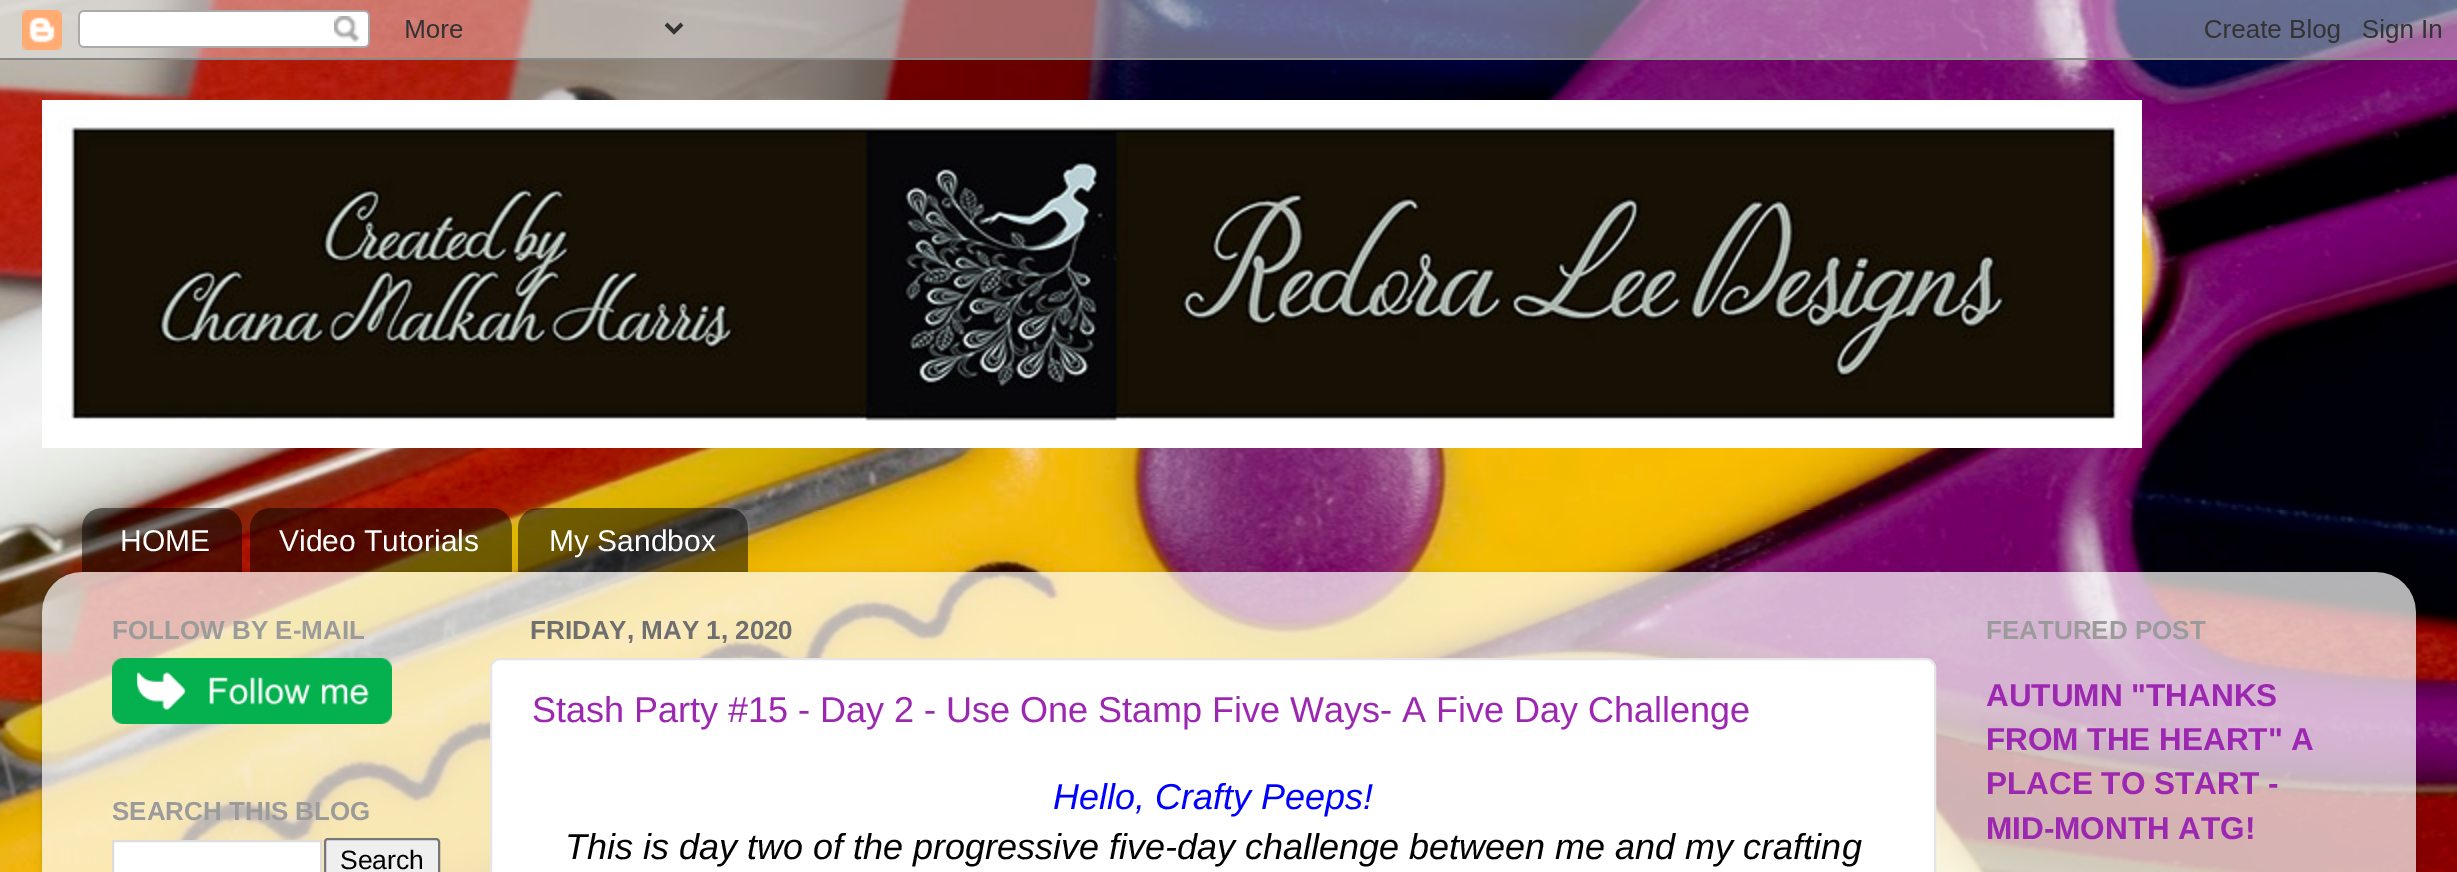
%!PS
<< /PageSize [2457 872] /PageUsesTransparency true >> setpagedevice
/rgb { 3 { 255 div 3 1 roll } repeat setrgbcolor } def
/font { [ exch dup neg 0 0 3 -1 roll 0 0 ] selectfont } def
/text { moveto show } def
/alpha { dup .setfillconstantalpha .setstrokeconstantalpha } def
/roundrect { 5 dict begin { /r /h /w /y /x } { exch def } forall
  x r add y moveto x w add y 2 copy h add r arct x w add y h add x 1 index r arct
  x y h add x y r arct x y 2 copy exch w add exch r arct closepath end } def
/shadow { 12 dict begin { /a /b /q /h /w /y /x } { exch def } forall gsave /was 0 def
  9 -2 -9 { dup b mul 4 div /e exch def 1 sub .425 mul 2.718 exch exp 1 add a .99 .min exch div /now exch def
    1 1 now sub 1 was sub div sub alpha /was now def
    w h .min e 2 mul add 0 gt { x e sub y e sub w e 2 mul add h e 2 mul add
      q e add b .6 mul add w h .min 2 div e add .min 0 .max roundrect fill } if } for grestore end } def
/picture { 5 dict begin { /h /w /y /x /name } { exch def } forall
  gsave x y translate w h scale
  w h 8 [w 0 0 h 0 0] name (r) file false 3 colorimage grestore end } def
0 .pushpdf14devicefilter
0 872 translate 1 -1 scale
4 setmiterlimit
255 255 255 rgb
0 0 2457 872 rectfill
(img_01.rgb) 0 0 2457 872 picture
(img_02.rgb) 0 0 2457 60 picture
(img_03.rgb) 42 100 2100 348 picture
(img_04.rgb) 82 508 160 64 picture
(img_05.rgb) 250 508 262 64 picture
(img_06.rgb) 518 508 230 64 picture
gsave
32 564 moveto 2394 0 rlineto 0 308 rlineto -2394 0 rlineto closepath 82 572 moveto 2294 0 rlineto 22 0 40 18 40 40 rcurveto 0 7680 rlineto -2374 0 rlineto 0 -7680 rlineto 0 -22 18 -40 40 -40 rcurveto closepath eoclip newpath
0 0 0 rgb
42 574 2374 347 40 3 0.15 shadow
grestore
(img_07.rgb) 42 572 2374 300 picture
(img_08.rgb) 112 658 280 66 picture
113 841 moveto 208 0 rlineto 0 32 rlineto -208 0 rlineto closepath gsave fill grestore
221 221 221 rgb
2 setlinewidth
stroke
239 239 239 rgb
325 839 114 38 3 roundrect gsave fill grestore
118 118 118 rgb
stroke
255 255 255 rgb
491 659 1444 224 9 roundrect gsave fill grestore
229 229 229 rgb
stroke
/LiberationSans-Regular 30 font
255 255 255 rgb
(HOME) 120 551 text
(Video Tutorials) 279 551 text
(My Sandbox) 549 551 text
/LiberationSans-Bold 26 font
155 155 155 rgb
(FOLLOW BY E-MAIL) 112 639 text
(SEARCH THIS BLOG) 112 820 text
/LiberationSans-Regular 26.5 font
0 0 0 rgb
(Search) 340 869 text
/LiberationSans-Bold 26 font
111 111 111 rgb
(FRIDAY, MAY 1, 2020) 530 639 text
/LiberationSans-Regular 36 font
156 39 176 rgb
(Stash Party #15 - Day 2 - Use One Stamp Five Ways- A Five Day Challenge) 532 722 text
/LiberationSans-Italic 36 font
0 0 255 rgb
(Hello, Crafty Peeps!) 1053 809 text
0 0 0 rgb
(This is day two of the progressive five-day challenge between me and my crafting) 565 859 text
/LiberationSans-Bold 26 font
155 155 155 rgb
(FEATURED POST) 1986 639 text
/LiberationSans-Bold 31.5 font
156 39 176 rgb
(AUTUMN "THANKS) 1986 706 text
(FROM THE HEART" A) 1986 750 text
(PLACE TO START -) 1986 794 text
(MID-MONTH ATG!) 1986 839 text
.poppdf14devicefilter showpage
